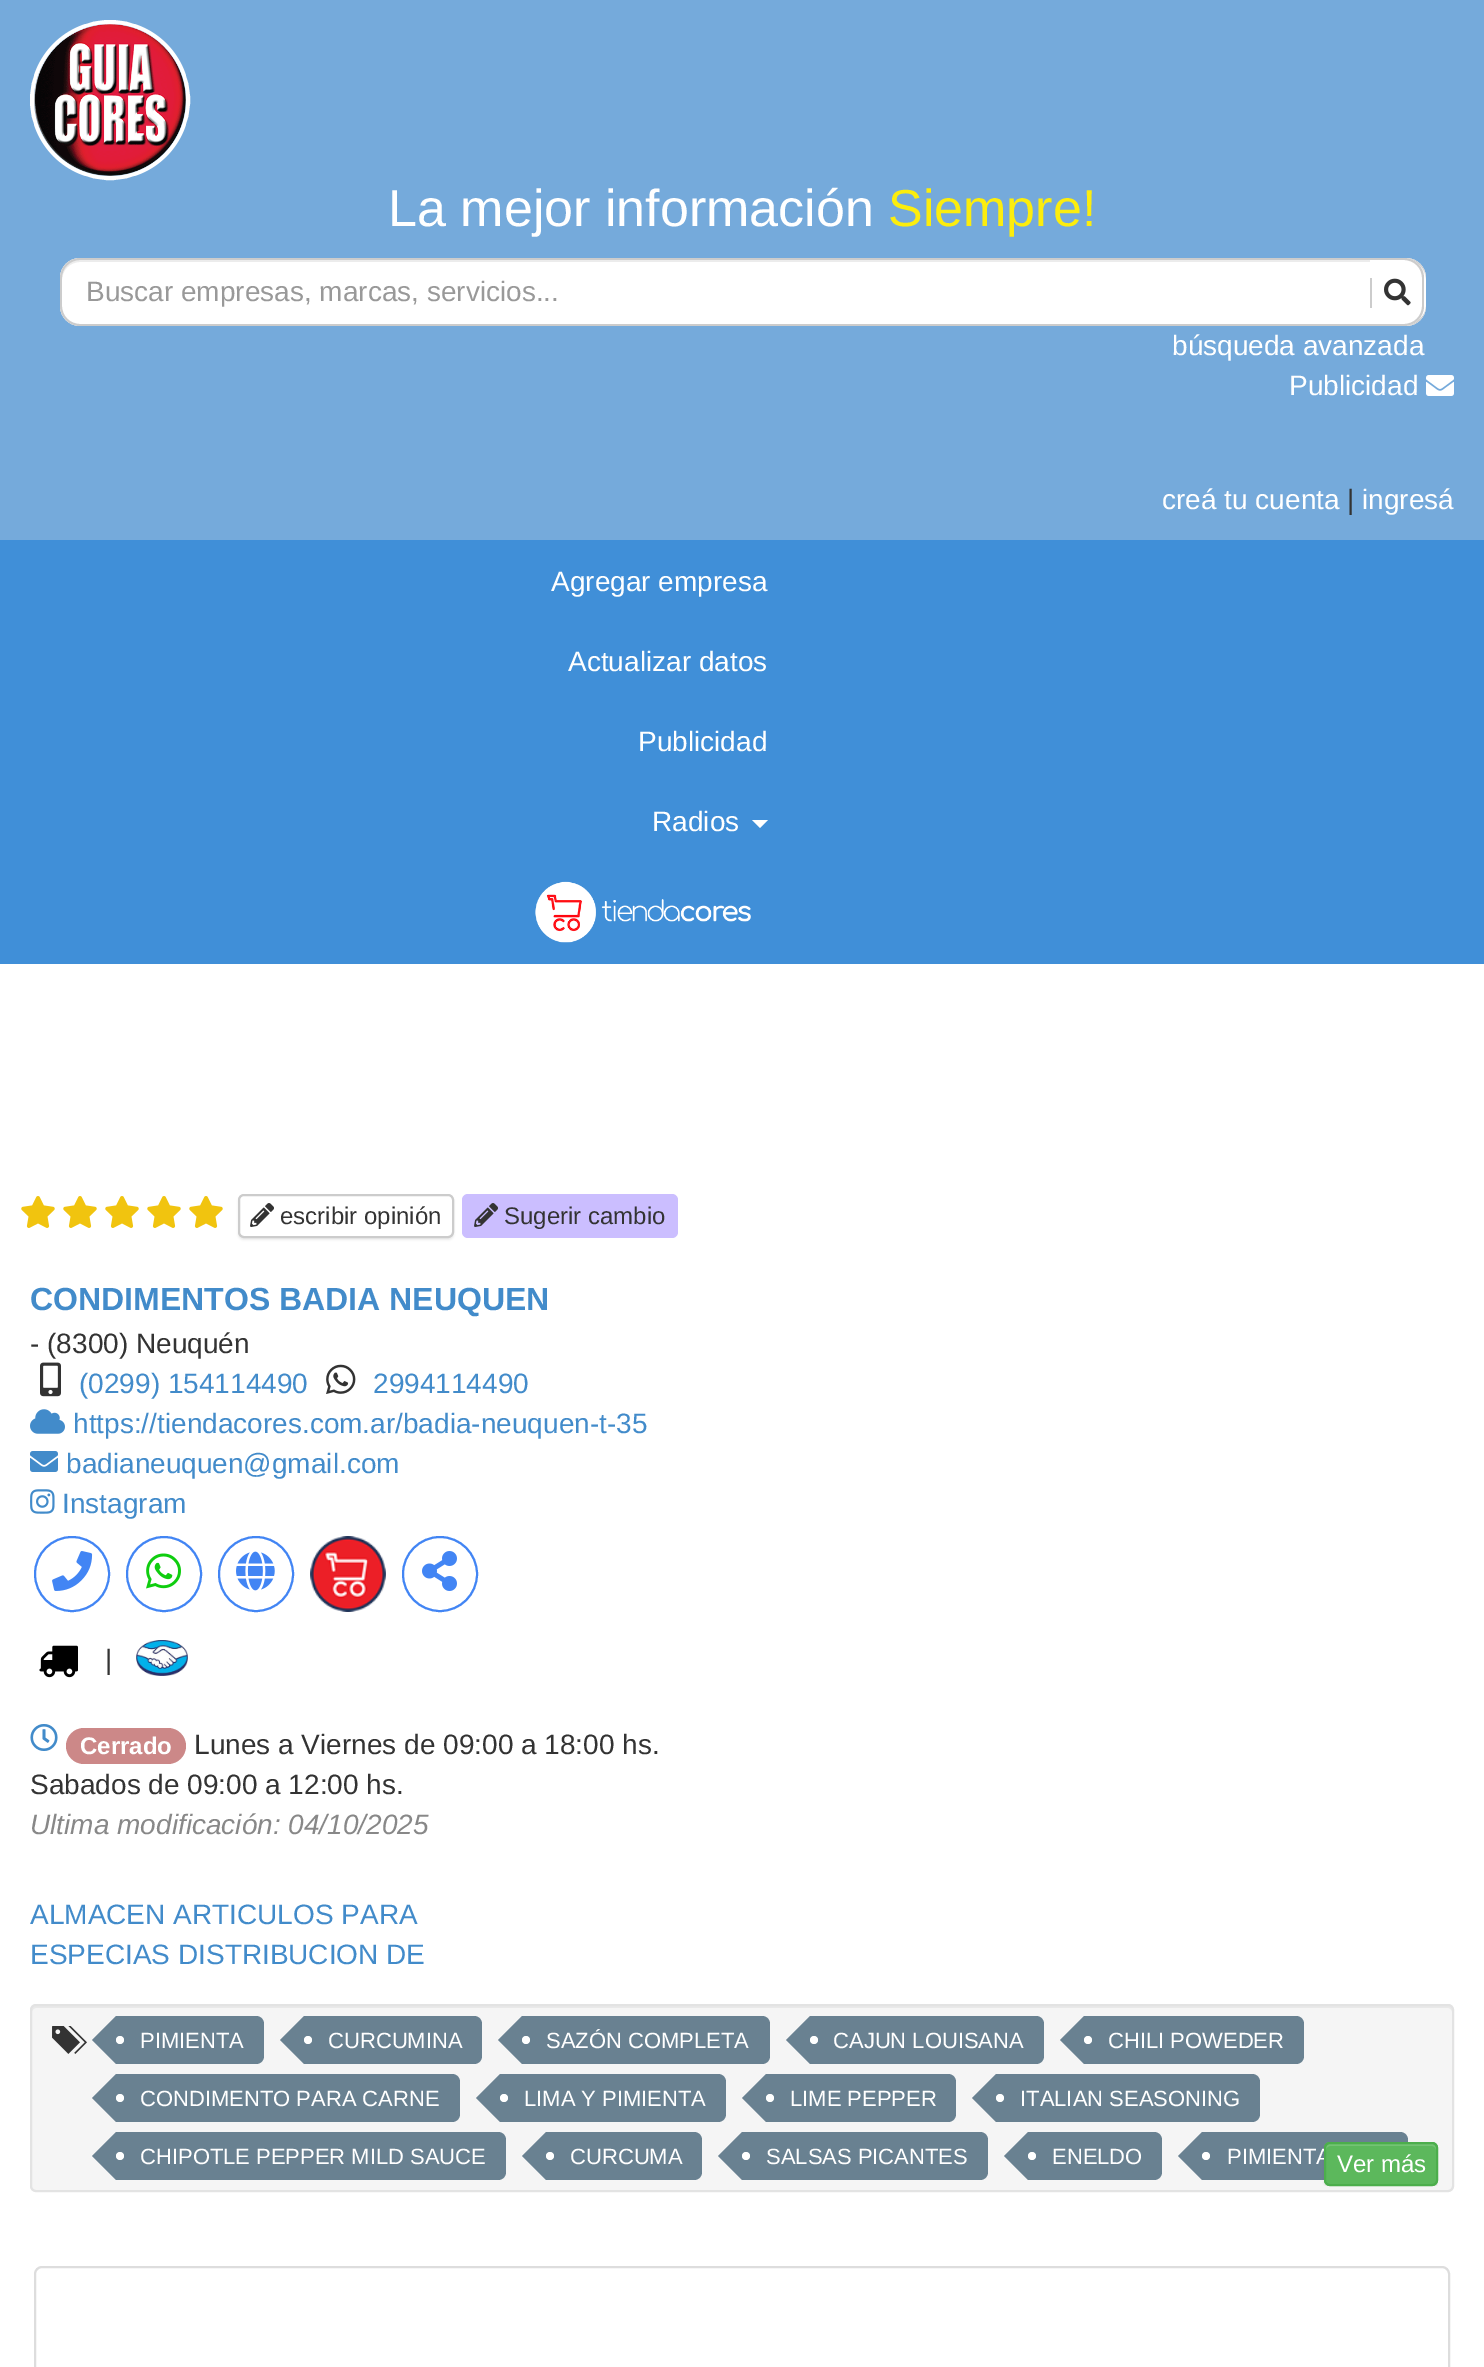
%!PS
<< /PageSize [1484 2367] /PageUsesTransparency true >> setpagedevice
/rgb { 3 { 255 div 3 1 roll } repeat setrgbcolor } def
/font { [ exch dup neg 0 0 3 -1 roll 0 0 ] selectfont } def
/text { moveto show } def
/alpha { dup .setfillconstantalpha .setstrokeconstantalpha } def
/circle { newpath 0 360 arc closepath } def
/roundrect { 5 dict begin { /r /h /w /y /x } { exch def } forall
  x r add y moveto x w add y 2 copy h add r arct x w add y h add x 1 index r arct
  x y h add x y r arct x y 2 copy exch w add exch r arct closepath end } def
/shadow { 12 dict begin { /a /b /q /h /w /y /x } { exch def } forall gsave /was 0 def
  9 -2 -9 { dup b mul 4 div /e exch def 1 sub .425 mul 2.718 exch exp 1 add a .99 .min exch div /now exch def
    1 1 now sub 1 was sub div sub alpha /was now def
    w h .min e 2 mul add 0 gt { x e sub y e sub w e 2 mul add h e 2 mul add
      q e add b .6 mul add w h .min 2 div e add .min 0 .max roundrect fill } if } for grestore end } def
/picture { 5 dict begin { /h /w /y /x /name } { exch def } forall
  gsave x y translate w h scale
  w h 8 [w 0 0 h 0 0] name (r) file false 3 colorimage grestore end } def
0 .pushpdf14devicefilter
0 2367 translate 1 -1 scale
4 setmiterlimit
255 255 255 rgb
0 0 1484 2367 rectfill
117 170 219 rgb
0 0 1484 540 rectfill
255 255 255 rgb
4 setlinewidth
110 100 78 circle stroke
(img_01.rgb) 34 24 152 152 picture
60 258 1366 68 20 roundrect fill
236 236 236 rgb
80 262 moveto 1326 0 rlineto 11 0 20 8 20 18 rcurveto 0 -12 -8 -20 -20 -20 rcurveto -1326 0 rlineto -12 0 -18 9 -18 20 rcurveto 0 -10 8 -18 18 -18 rcurveto closepath fill
204 204 204 rgb
80 258 moveto 1326 0 rlineto 11 0 20 9 20 20 rcurveto 0 28 rlineto 0 11 -9 20 -20 20 rcurveto -1326 0 rlineto -11 0 -20 -9 -20 -20 rcurveto 0 -28 rlineto 0 -11 9 -20 20 -20 rcurveto closepath 80 260 moveto 1326 0 rlineto 11 0 20 8 20 18 rcurveto 0 28 rlineto 0 10 -9 18 -20 18 rcurveto -1326 0 rlineto -10 0 -18 -8 -18 -18 rcurveto 0 -28 rlineto 0 -10 8 -18 18 -18 rcurveto closepath eofill
255 255 255 rgb
1370 258 moveto 34 0 rlineto 11 0 20 9 20 20 rcurveto 0 28 rlineto 0 11 -9 20 -20 20 rcurveto -34 0 rlineto closepath fill
204 204 204 rgb
1370 258 moveto 34 0 rlineto 11 0 20 9 20 20 rcurveto 0 28 rlineto 0 11 -9 20 -20 20 rcurveto -34 0 rlineto closepath 1370 260 moveto 34 0 rlineto 10 0 18 8 18 18 rcurveto 0 28 rlineto 0 10 -8 18 -18 18 rcurveto -34 0 rlineto closepath eofill
1370 278 2 30 rectfill
(img_02.rgb) 1384 278 27 28 picture
(img_03.rgb) 1426 375 28 21 picture
64 143 216 rgb
0 540 1484 424 rectfill
255 255 255 rgb
752 820 moveto 16 0 rlineto -8 8 rlineto closepath fill
(img_04.rgb) 535 881 216 62 picture
(img_05.rgb) 21 1196 34 32 picture
(img_05.rgb) 63 1196 34 32 picture
(img_05.rgb) 105 1196 34 32 picture
(img_05.rgb) 147 1196 34 32 picture
(img_05.rgb) 189 1196 34 32 picture
0 0 0 rgb
238 1196 216 44 6 1 0.07 shadow
255 255 255 rgb
239 1195 214 42 5 roundrect gsave fill grestore
204 204 204 rgb
2 setlinewidth
stroke
(img_06.rgb) 250 1203 24 24 picture
203 190 255 rgb
462 1194 216 44 6 roundrect fill
(img_07.rgb) 474 1203 24 24 picture
(img_08.rgb) 40 1362 21 35 picture
(img_09.rgb) 326 1364 30 30 picture
(img_10.rgb) 30 1409 35 25 picture
(img_11.rgb) 30 1451 28 21 picture
(img_12.rgb) 30 1489 25 25 picture
66 133 244 rgb
72 1574 37 circle stroke
(img_13.rgb) 52 1551 41 40 picture
164 1574 37 circle stroke
(img_14.rgb) 146 1553 35 36 picture
256 1574 37 circle stroke
(img_15.rgb) 236 1551 39 40 picture
(img_16.rgb) 310 1536 76 76 picture
440 1574 37 circle stroke
(img_17.rgb) 422 1551 35 40 picture
(img_18.rgb) 39 1645 39 33 picture
(img_19.rgb) 136 1640 52 36 picture
(img_20.rgb) 30 1724 28 27 picture
204 136 136 rgb
66 1728 120 36 18 roundrect fill
245 245 245 rgb
30 2004 1424 188 6 roundrect fill
233 233 233 rgb
36 2008 moveto 1412 0 rlineto 2 0 4 2 4 4 rcurveto 0 -3 0 -6 -4 -6 rcurveto -1412 0 rlineto -4 0 -4 3 -4 6 rcurveto 0 -2 2 -4 4 -4 rcurveto closepath fill
227 227 227 rgb
31 2005 1422 186 5 roundrect stroke
(img_21.rgb) 52 2026 35 28 picture
105 129 145 rgb
116 2016 moveto 140 0 rlineto 4.5 0 8 3.5 8 8 rcurveto 0 32 rlineto 0 4.5 -3.5 8 -8 8 rcurveto -140 0 rlineto closepath fill
116 2016 moveto 0 48 rlineto -24 -24 rlineto closepath fill
255 255 255 rgb
120 2040 4 circle fill
105 129 145 rgb
304 2016 moveto 170 0 rlineto 4.5 0 8 3.5 8 8 rcurveto 0 32 rlineto 0 4.5 -3.5 8 -8 8 rcurveto -170 0 rlineto closepath fill
304 2016 moveto 0 48 rlineto -24 -24 rlineto closepath fill
255 255 255 rgb
308 2040 4 circle fill
105 129 145 rgb
522 2016 moveto 240 0 rlineto 4.5 0 8 3.5 8 8 rcurveto 0 32 rlineto 0 4.5 -3.5 8 -8 8 rcurveto -240 0 rlineto closepath fill
522 2016 moveto 0 48 rlineto -24 -24 rlineto closepath fill
255 255 255 rgb
526 2040 4 circle fill
105 129 145 rgb
810 2016 moveto 226 0 rlineto 4.5 0 8 3.5 8 8 rcurveto 0 32 rlineto 0 4.5 -3.5 8 -8 8 rcurveto -226 0 rlineto closepath fill
810 2016 moveto 0 48 rlineto -24 -24 rlineto closepath fill
255 255 255 rgb
814 2040 4 circle fill
105 129 145 rgb
1084 2016 moveto 212 0 rlineto 4.5 0 8 3.5 8 8 rcurveto 0 32 rlineto 0 4.5 -3.5 8 -8 8 rcurveto -212 0 rlineto closepath fill
1084 2016 moveto 0 48 rlineto -24 -24 rlineto closepath fill
255 255 255 rgb
1088 2040 4 circle fill
105 129 145 rgb
116 2074 moveto 336 0 rlineto 4.5 0 8 3.5 8 8 rcurveto 0 32 rlineto 0 4.5 -3.5 8 -8 8 rcurveto -336 0 rlineto closepath fill
116 2074 moveto 0 48 rlineto -24 -24 rlineto closepath fill
255 255 255 rgb
120 2098 4 circle fill
105 129 145 rgb
500 2074 moveto 218 0 rlineto 4.5 0 8 3.5 8 8 rcurveto 0 32 rlineto 0 4.5 -3.5 8 -8 8 rcurveto -218 0 rlineto closepath fill
500 2074 moveto 0 48 rlineto -24 -24 rlineto closepath fill
255 255 255 rgb
504 2098 4 circle fill
105 129 145 rgb
766 2074 moveto 182 0 rlineto 4.5 0 8 3.5 8 8 rcurveto 0 32 rlineto 0 4.5 -3.5 8 -8 8 rcurveto -182 0 rlineto closepath fill
766 2074 moveto 0 48 rlineto -24 -24 rlineto closepath fill
255 255 255 rgb
770 2098 4 circle fill
105 129 145 rgb
996 2074 moveto 256 0 rlineto 4.5 0 8 3.5 8 8 rcurveto 0 32 rlineto 0 4.5 -3.5 8 -8 8 rcurveto -256 0 rlineto closepath fill
996 2074 moveto 0 48 rlineto -24 -24 rlineto closepath fill
255 255 255 rgb
1000 2098 4 circle fill
105 129 145 rgb
116 2132 moveto 382 0 rlineto 4.5 0 8 3.5 8 8 rcurveto 0 32 rlineto 0 4.5 -3.5 8 -8 8 rcurveto -382 0 rlineto closepath fill
116 2132 moveto 0 48 rlineto -24 -24 rlineto closepath fill
255 255 255 rgb
120 2156 4 circle fill
105 129 145 rgb
546 2132 moveto 148 0 rlineto 4.5 0 8 3.5 8 8 rcurveto 0 32 rlineto 0 4.5 -3.5 8 -8 8 rcurveto -148 0 rlineto closepath fill
546 2132 moveto 0 48 rlineto -24 -24 rlineto closepath fill
255 255 255 rgb
550 2156 4 circle fill
105 129 145 rgb
742 2132 moveto 238 0 rlineto 4.5 0 8 3.5 8 8 rcurveto 0 32 rlineto 0 4.5 -3.5 8 -8 8 rcurveto -238 0 rlineto closepath fill
742 2132 moveto 0 48 rlineto -24 -24 rlineto closepath fill
255 255 255 rgb
746 2156 4 circle fill
105 129 145 rgb
1028 2132 moveto 126 0 rlineto 4.5 0 8 3.5 8 8 rcurveto 0 32 rlineto 0 4.5 -3.5 8 -8 8 rcurveto -126 0 rlineto closepath fill
1028 2132 moveto 0 48 rlineto -24 -24 rlineto closepath fill
255 255 255 rgb
1032 2156 4 circle fill
105 129 145 rgb
1202 2132 moveto 198 0 rlineto 4.5 0 8 3.5 8 8 rcurveto 0 32 rlineto 0 4.5 -3.5 8 -8 8 rcurveto -198 0 rlineto closepath fill
1202 2132 moveto 0 48 rlineto -24 -24 rlineto closepath fill
255 255 255 rgb
1206 2156 4 circle fill
gsave
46 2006 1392 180 rectclip
0 0 0 rgb
1324 2144 114 44 6 1 0.07 shadow
grestore
221 221 221 rgb
35 2267 1414 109 7 roundrect stroke
/LiberationSans-Regular 52 font
255 255 255 rgb
(La mejor información) 388 226 text
252 237 13 rgb
(Siempre!) 888 226 text
/LiberationSans-Regular 28 font
153 153 153 rgb
(Buscar empresas, marcas, servicios...) 86 301 text
255 255 255 rgb
(búsqueda avanzada) 1172 355 text
(Publicidad) 1289 395 text
(creá tu cuenta) 1162 509 text
51 51 51 rgb
(|) 1347 509 text
255 255 255 rgb
(ingresá) 1362 509 text
(Agregar empresa) 551 591 text
(Actualizar datos) 568 671 text
(Publicidad) 638 751 text
(Radios) 652 831 text
/LiberationSans-Regular 24 font
51 51 51 rgb
(escribir opinión) 280 1224 text
(Sugerir cambio) 504 1224 text
/LiberationSans-Bold 32 font
66 139 202 rgb
(CONDIMENTOS BADIA NEUQUEN) 30 1310 text
/LiberationSans-Regular 28 font
51 51 51 rgb
(- \(8300\) Neuquén) 30 1353 text
66 139 202 rgb
(\(0299\) 154114490) 79 1393 text
(2994114490) 373 1393 text
(https://tiendacores.com.ar/badia-neuquen-t-35) 73 1433 text
(badianeuquen@gmail.com) 66 1473 text
(Instagram) 62 1513 text
51 51 51 rgb
(|) 105 1669 text
/LiberationSans-Bold 24 font
255 255 255 rgb
(Cerrado) 80 1754 text
/LiberationSans-Regular 28 font
51 51 51 rgb
(Lunes a Viernes de 09:00 a 18:00 hs.) 194 1754 text
(Sabados de 09:00 a 12:00 hs.) 30 1794 text
/LiberationSans-Italic 28 font
136 136 136 rgb
(Ultima modificación: 04/10/2025) 30 1834 text
/LiberationSans-Regular 28 font
66 139 202 rgb
(ALMACEN ARTICULOS PARA) 30 1924 text
(ESPECIAS DISTRIBUCION DE) 30 1964 text
/LiberationSans-Regular 22 font
255 255 255 rgb
(PIMIENTA) 140 2048 text
(CURCUMINA) 328 2048 text
(SAZÓN COMPLETA) 546 2048 text
(CAJUN LOUISANA) 833 2048 text
(CHILI POWEDER) 1108 2048 text
(CONDIMENTO PARA CARNE) 140 2106 text
(LIMA Y PIMIENTA) 524 2106 text
(LIME PEPPER) 790 2106 text
(ITALIAN SEASONING) 1020 2106 text
(CHIPOTLE PEPPER MILD SAUCE) 140 2164 text
(CURCUMA) 570 2164 text
(SALSAS PICANTES) 766 2164 text
(ENELDO) 1052 2164 text
(PIMIENTA) 1227 2164 text
92 184 92 rgb
1324 2142 114 44 6 roundrect fill
116 195 116 rgb
1330 2146 moveto 102 0 rlineto 2 0 4 2 4 4 rcurveto 0 -2 rlineto 0 -2 -2 -4 -4 -4 rcurveto -102 0 rlineto -2 0 -4 2 -4 4 rcurveto 0 2 rlineto 0 -2 2 -4 4 -4 rcurveto closepath fill
76 174 76 rgb
1325 2143 112 42 5 roundrect stroke
/LiberationSans-Regular 24 font
255 255 255 rgb
(Ver más) 1337 2172 text
.poppdf14devicefilter showpage
